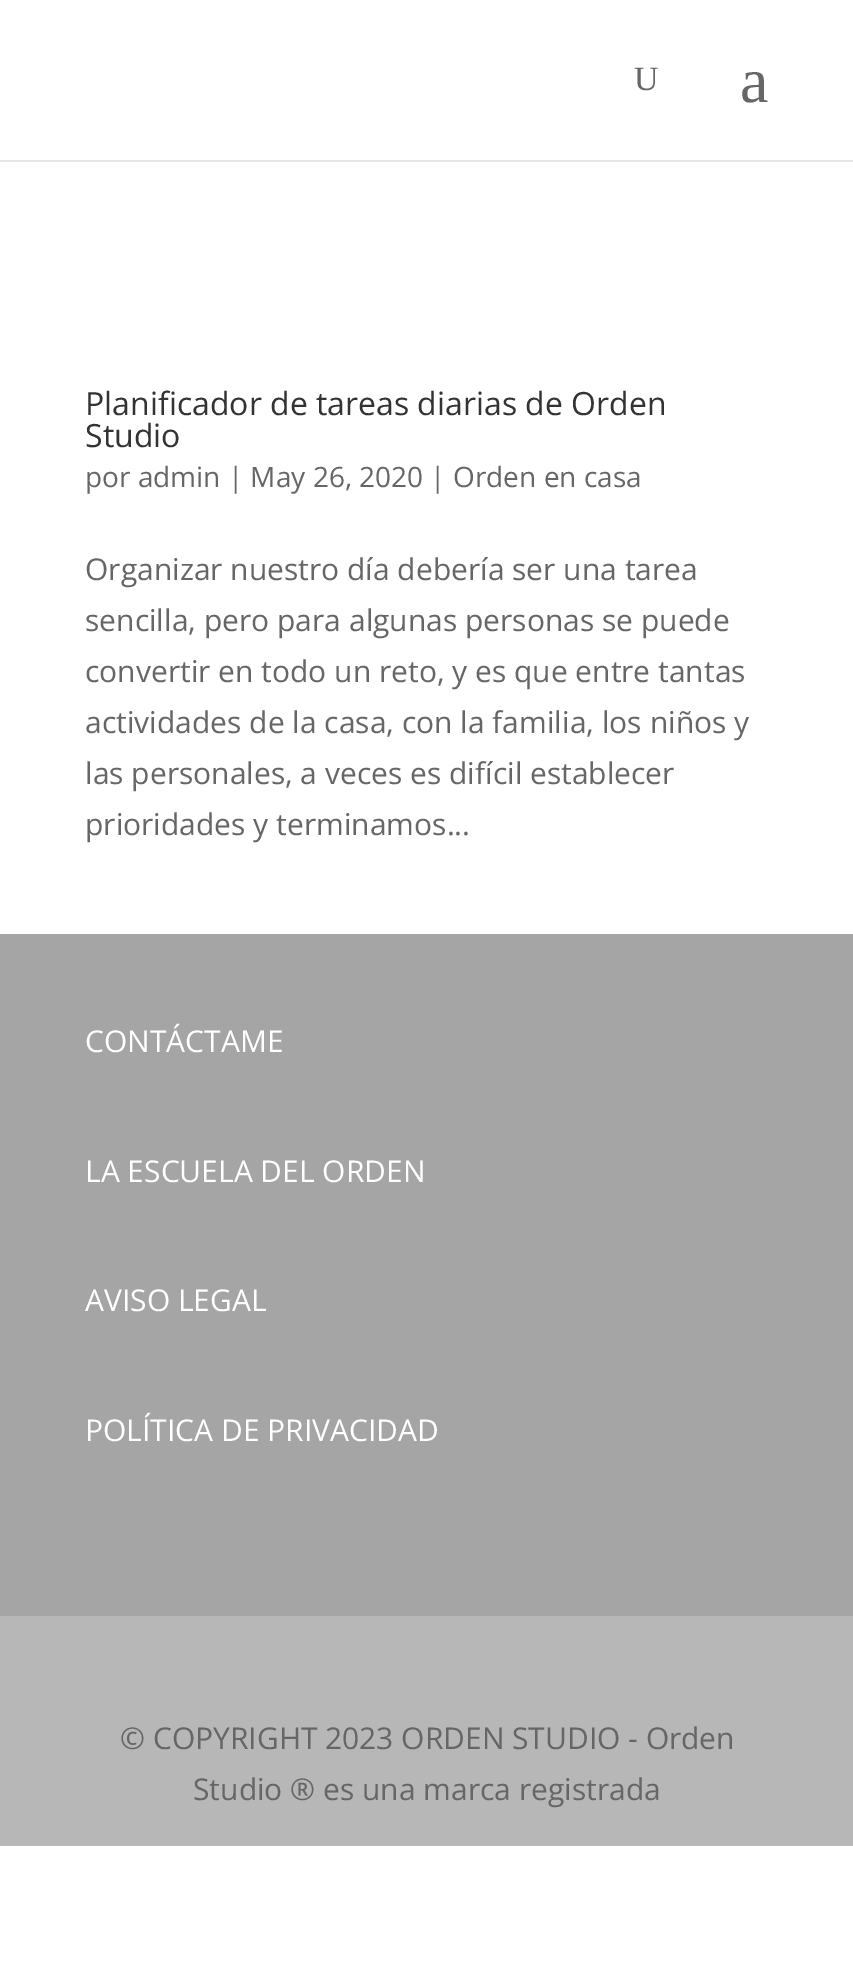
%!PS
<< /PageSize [853 1981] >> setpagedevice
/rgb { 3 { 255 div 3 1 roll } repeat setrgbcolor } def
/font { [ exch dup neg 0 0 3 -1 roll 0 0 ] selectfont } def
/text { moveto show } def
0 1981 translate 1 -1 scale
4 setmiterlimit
255 255 255 rgb
0 0 853 1981 rectfill
230 230 230 rgb
0 160 853 2 rectfill
165 165 165 rgb
0 934 853 682 rectfill
183 183 183 rgb
0 1616 853 230 rectfill
/LiberationSerif-Regular 34 font
102 102 102 rgb
(U) 634 90 text
/LiberationSerif-Regular 64 font
(a) 740 102 text
/OpenSans-Regular 32 font
51 51 51 rgb
(Planificador de tareas diarias de Orden) 85 415 text
(Studio) 85 447 text
/OpenSans-Regular 28 font
102 102 102 rgb
(por admin | May 26, 2020 | Orden en casa) 85 487 text
/OpenSans-Regular 30 font
(Organizar nuestro día debería ser una tarea) 85 580 text
(sencilla, pero para algunas personas se puede) 85 631 text
(convertir en todo un reto, y es que entre tantas) 85 682 text
(actividades de la casa, con la familia, los niños y) 85 733 text
(las personales, a veces es difícil establecer) 85 784 text
(prioridades y terminamos...) 85 835 text
255 255 255 rgb
(CONTÁCTAME) 85 1052 text
(LA ESCUELA DEL ORDEN) 85 1182 text
(AVISO LEGAL) 85 1311 text
(POLÍTICA DE PRIVACIDAD) 85 1441 text
102 102 102 rgb
(© COPYRIGHT 2023 ORDEN STUDIO - Orden) 120 1749 text
(Studio ® es una marca registrada) 193 1800 text
showpage
